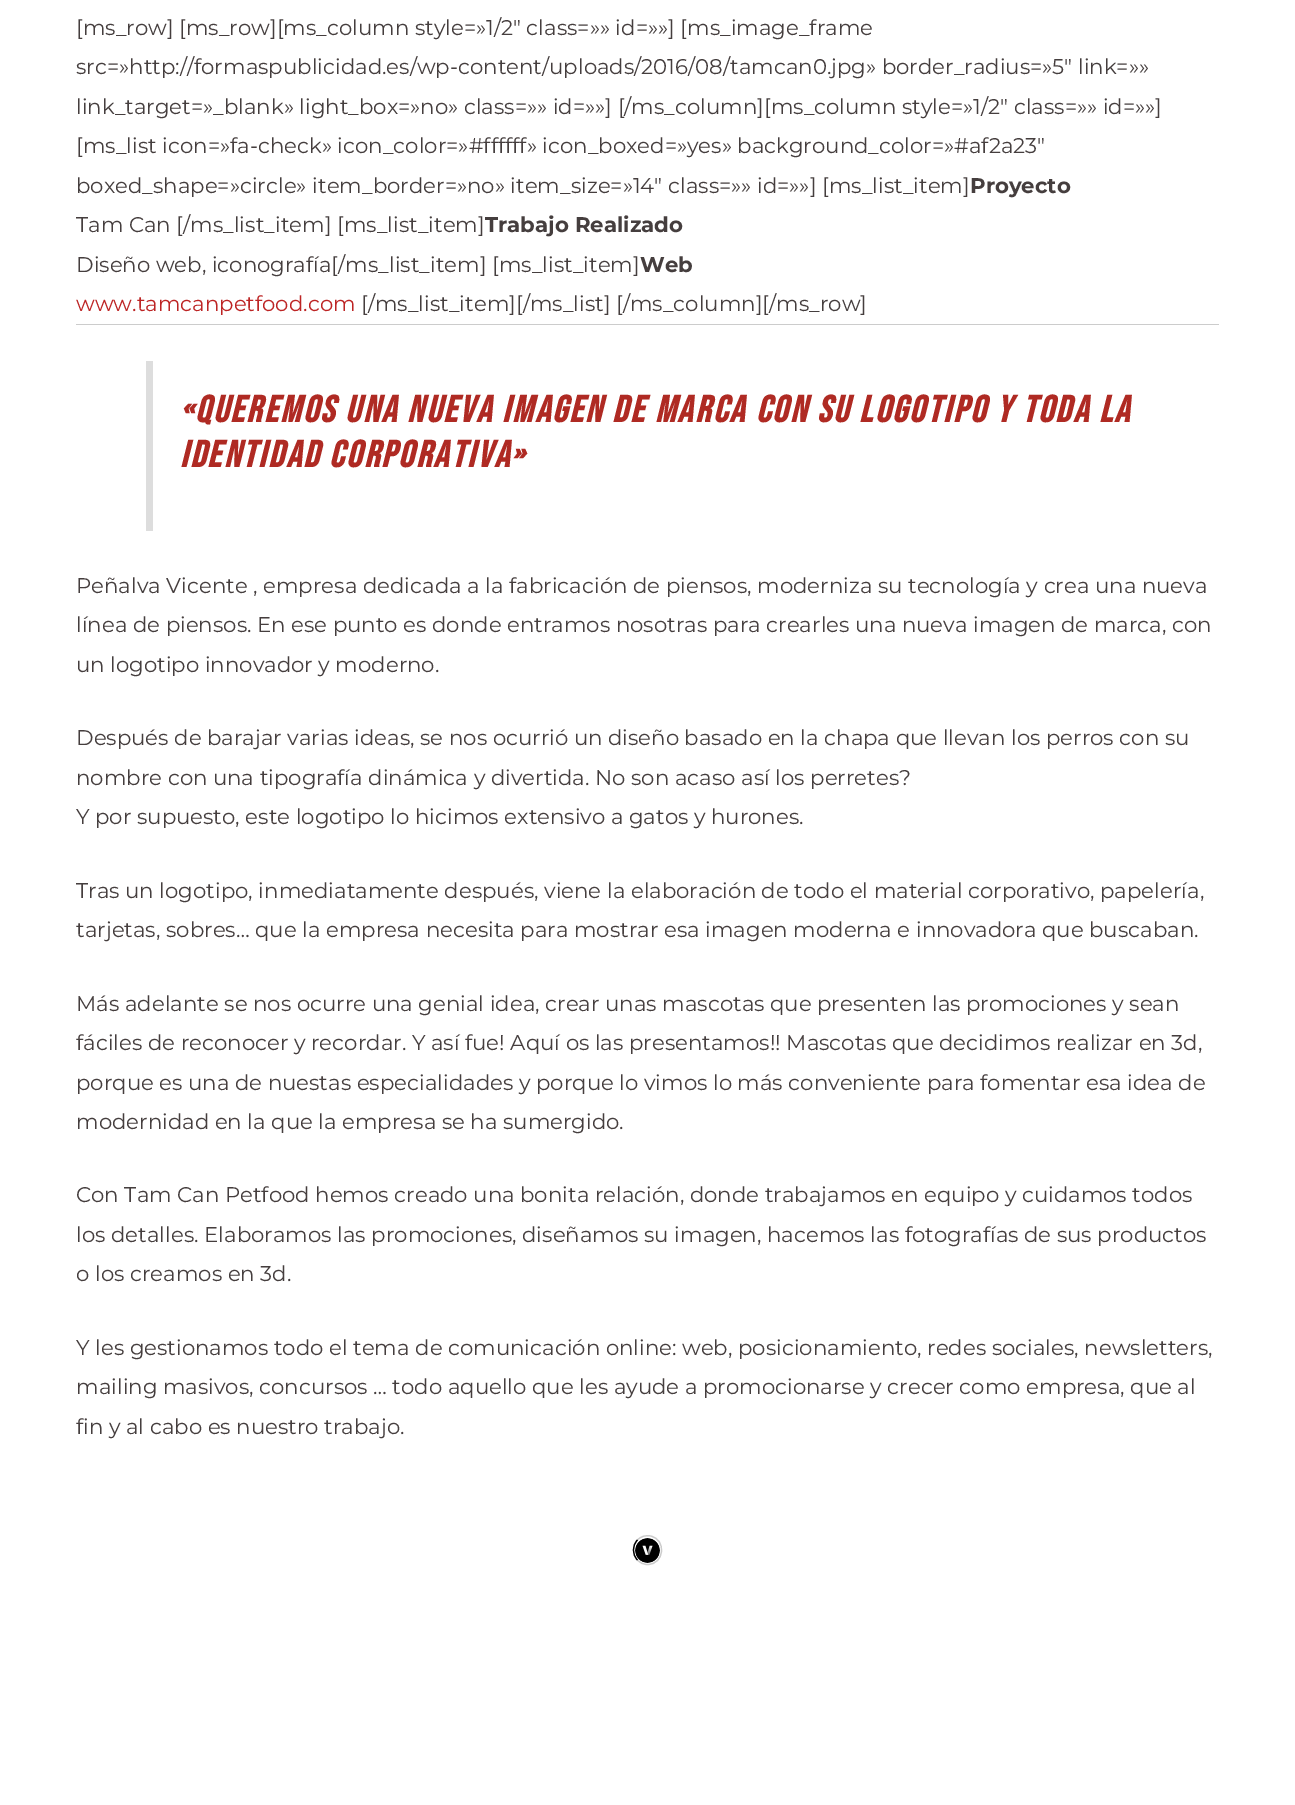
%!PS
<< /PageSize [1295 1805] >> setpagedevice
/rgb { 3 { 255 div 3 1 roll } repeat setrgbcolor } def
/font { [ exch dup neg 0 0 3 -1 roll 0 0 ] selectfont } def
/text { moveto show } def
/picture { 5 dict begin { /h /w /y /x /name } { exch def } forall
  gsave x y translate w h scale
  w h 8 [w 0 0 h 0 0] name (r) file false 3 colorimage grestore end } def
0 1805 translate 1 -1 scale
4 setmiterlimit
255 255 255 rgb
0 0 1295 1805 rectfill
204 204 204 rgb
76 324 1143 1 rectfill
221 221 221 rgb
146 361 7 170 rectfill
(img_01.rgb) 635 1538 25 25 picture
204 204 204 rgb
1.2 setlinewidth
637.5 1540 moveto 3 -3.5 8 -5 13 -4 rcurveto 16.5 3.5 14 28.5 -3 28.5 rcurveto -4 0 -7.5 -1.5 -10 -4.5 rcurveto stroke
0 0 0 rgb
637.5 1560 moveto -5.5 -5.5 -5.5 -14.5 0 -20 rcurveto stroke
/Montserrat-Regular 21.25 font
69 62 62 rgb
([ms_row] [ms_row][ms_column style=»1/2″ class=»» id=»»] [ms_image_frame) 76 35 text
(src=»http://formaspublicidad.es/wp-content/uploads/2016/08/tamcan0.jpg» border_radius=»5″ link=»») 76 74 text
(link_target=»_blank» light_box=»no» class=»» id=»»] [/ms_column][ms_column style=»1/2″ class=»» id=»»]) 76 114 text
([ms_list icon=»fa-check» icon_color=»#ffffff» icon_boxed=»yes» background_color=»#af2a23″) 76 153 text
(boxed_shape=»circle» item_border=»no» item_size=»14″ class=»» id=»»] [ms_list_item]) 76 193 text
/Montserrat-Bold 21.25 font
(Proyecto) 970 193 text
/Montserrat-Regular 21.25 font
(Tam Can [/ms_list_item] [ms_list_item]) 76 232 text
/Montserrat-Bold 21.25 font
(Trabajo Realizado) 485 232 text
/Montserrat-Regular 21.25 font
(Diseño web, iconografía[/ms_list_item] [ms_list_item]) 76 272 text
/Montserrat-Bold 21.25 font
(Web) 640 272 text
/Montserrat-Regular 21.25 font
189 36 36 rgb
(www.tamcanpetfood.com) 76 311 text
69 62 62 rgb
([/ms_list_item][/ms_list] [/ms_column][/ms_row]) 361 311 text
/BebasNeue-BoldItalic 37.5 font
175 42 35 rgb
180 422 moveto 2.5 0 («Queremos una nueva imagen de marca con su logotipo y toda la) ashow
180 467 moveto 2.5 0 (identidad corporativa») ashow
/Montserrat-Regular 21.25 font
69 62 62 rgb
(Peñalva Vicente , empresa dedicada a la fabricación de piensos, moderniza su tecnología y crea una nueva) 76 593 text
(línea de piensos. En ese punto es donde entramos nosotras para crearles una nueva imagen de marca, con) 76 632 text
(un logotipo innovador y moderno.) 76 672 text
(Después de barajar varias ideas, se nos ocurrió un diseño basado en la chapa que llevan los perros con su) 76 745 text
(nombre con una tipografía dinámica y divertida. No son acaso así los perretes?) 76 785 text
(Y por supuesto, este logotipo lo hicimos extensivo a gatos y hurones.) 76 824 text
(Tras un logotipo, inmediatamente después, viene la elaboración de todo el material corporativo, papelería,) 76 898 text
(tarjetas, sobres… que la empresa necesita para mostrar esa imagen moderna e innovadora que buscaban.) 76 937 text
(Más adelante se nos ocurre una genial idea, crear unas mascotas que presenten las promociones y sean) 76 1011 text
(fáciles de reconocer y recordar. Y así fue! Aquí os las presentamos!! Mascotas que decidimos realizar en 3d,) 76 1050 text
(porque es una de nuestas especialidades y porque lo vimos lo más conveniente para fomentar esa idea de) 76 1090 text
(modernidad en la que la empresa se ha sumergido.) 76 1129 text
(Con Tam Can Petfood hemos creado una bonita relación, donde trabajamos en equipo y cuidamos todos) 76 1202 text
(los detalles. Elaboramos las promociones, diseñamos su imagen, hacemos las fotografías de sus productos) 76 1242 text
(o los creamos en 3d.) 76 1281 text
(Y les gestionamos todo el tema de comunicación online: web, posicionamiento, redes sociales, newsletters,) 76 1355 text
(mailing masivos, concursos … todo aquello que les ayude a promocionarse y crecer como empresa, que al) 76 1394 text
(fin y al cabo es nuestro trabajo.) 76 1434 text
showpage
